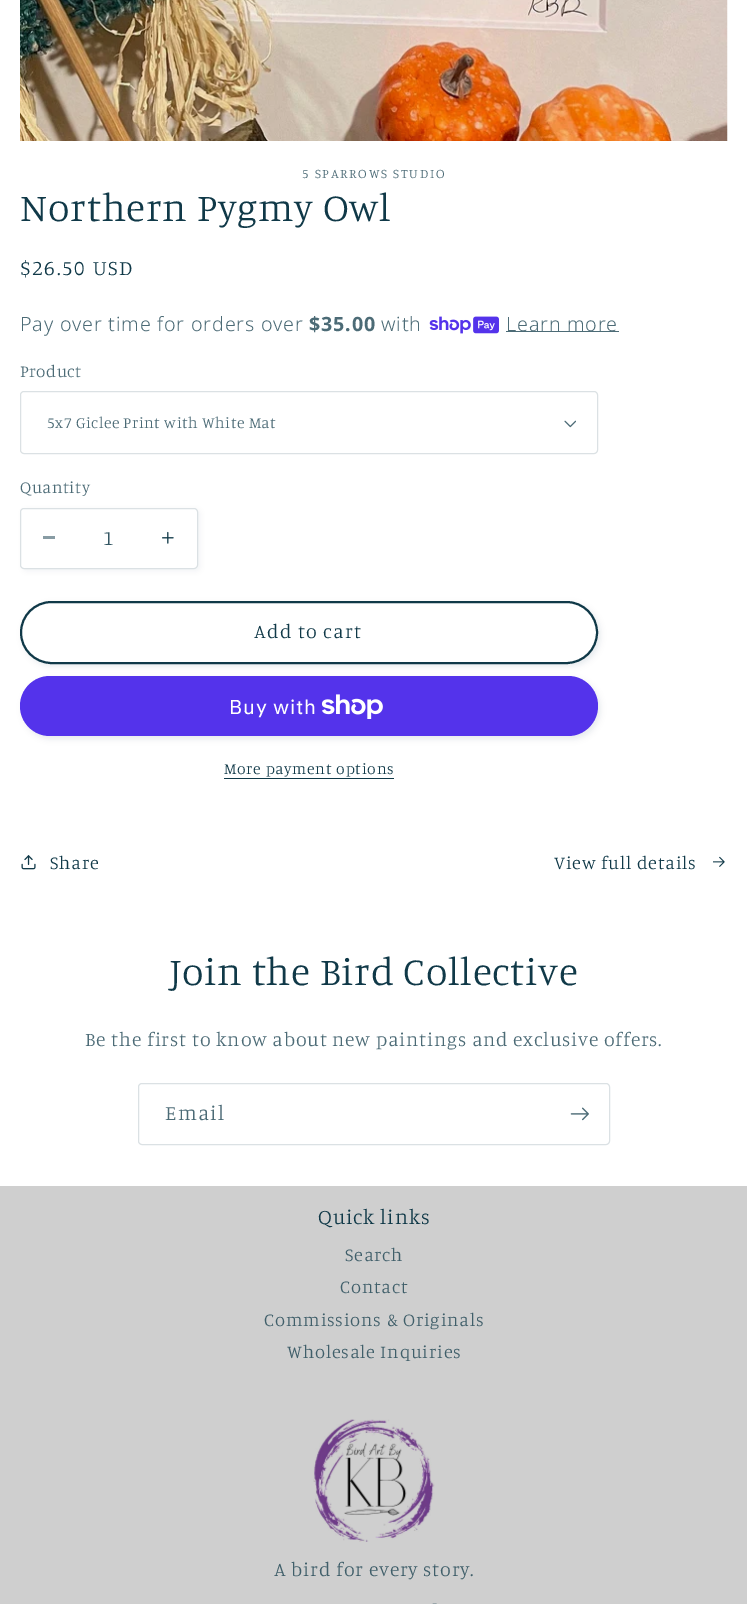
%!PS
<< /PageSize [747 1604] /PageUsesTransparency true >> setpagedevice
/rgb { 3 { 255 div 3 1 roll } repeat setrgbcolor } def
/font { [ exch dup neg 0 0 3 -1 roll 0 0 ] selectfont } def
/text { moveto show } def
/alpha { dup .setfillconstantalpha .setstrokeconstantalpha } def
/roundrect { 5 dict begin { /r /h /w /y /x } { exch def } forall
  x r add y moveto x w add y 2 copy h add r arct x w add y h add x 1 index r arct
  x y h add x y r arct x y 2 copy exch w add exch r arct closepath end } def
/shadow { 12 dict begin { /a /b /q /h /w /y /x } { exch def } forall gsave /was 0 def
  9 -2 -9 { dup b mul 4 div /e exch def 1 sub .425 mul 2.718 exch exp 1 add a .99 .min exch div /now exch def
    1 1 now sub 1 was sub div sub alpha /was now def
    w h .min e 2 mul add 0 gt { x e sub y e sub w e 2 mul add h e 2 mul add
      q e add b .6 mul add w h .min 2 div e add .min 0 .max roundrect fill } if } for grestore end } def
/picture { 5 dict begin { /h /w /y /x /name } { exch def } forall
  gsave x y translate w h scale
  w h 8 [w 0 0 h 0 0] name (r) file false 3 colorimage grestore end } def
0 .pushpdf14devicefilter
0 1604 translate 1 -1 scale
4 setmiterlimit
255 255 255 rgb
0 0 747 1604 rectfill
(img_01.rgb) 20 0 708 141 picture
(img_02.rgb) 429 316 70 18 picture
76 107 118 rgb
506 331 113 1 rectfill
(img_03.rgb) 564 420 12 8 picture
0.15 alpha
16 57 72 rgb
20.5 391.5 577 62 3.5 roundrect stroke
1 alpha
23 510 177 61 4 3 0.05 shadow
255 255 255 rgb
20 508 178 61 4 roundrect fill
136 156 164 rgb
43 536 12 3 rectfill
(img_04.rgb) 162 531 12 13 picture
219 225 228 rgb
20.5 508.5 177 60 3.5 roundrect stroke
16 57 72 rgb
23 604 577 62 31 3 0.1 shadow
255 255 255 rgb
20 601 578 63 31.5 roundrect fill
20.5 601.5 577 62 31 roundrect stroke
16 57 72 rgb
2 setlinewidth
21 602 576 61 30.5 roundrect stroke
23 679 577 60 30 3 0.1 shadow
84 51 235 rgb
20 676 578 60 30 roundrect fill
(img_05.rgb) 321 694 62 25 picture
16 57 72 rgb
224 778 170 1 rectfill
(img_06.rgb) 21 855 15 15 picture
(img_07.rgb) 713 856 12 11 picture
219 225 228 rgb
1 setlinewidth
138.5 1083.5 471 61 3.5 roundrect stroke
(img_08.rgb) 570 1107 19 14 picture
207 207 207 rgb
0 1186 747 418 rectfill
(img_09.rgb) 313 1419 122 123 picture
(img_10.rgb) 432 1603 5 1 picture
/Manuale-Light 13.1 font
76 107 118 rgb
302 178 moveto 1.75 0 (5 SPARROWS STUDIO) ashow
/Manuale-Light 39.4 font
16 57 72 rgb
20 221 moveto 0.8 0 (Northern Pygmy Owl) ashow
/Manuale-Light 21 font
20 275 moveto 1.75 0 ($26.50 USD) ashow
/NotoSans-Light 19.7 font
76 107 118 rgb
20 331 moveto 0.8 0 (Pay over time for orders over) ashow
/NotoSans-Bold 19.7 font
309 331 moveto 0.8 0 ($35.00) ashow
/NotoSans-Light 19.7 font
381 331 moveto 0.8 0 (with) ashow
506 331 moveto 0.8 0 (Learn more) ashow
/Manuale-Light 17 font
20 377 moveto 0.5 0 (Product) ashow
/Manuale-Light 15.75 font
47 428 moveto 0.5 0 (5x7 Giclee Print with White Mat) ashow
/Manuale-Light 17 font
20 493 moveto 0.5 0 (Quantity) ashow
/Manuale-Light 21 font
52 87 99 rgb
(1) 103 545 text
/Manuale-Light 19.7 font
16 57 72 rgb
254 638 moveto 1.25 0 (Add to cart) ashow
/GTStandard-Regular 20 font
255 255 255 rgb
229 714 moveto 0.8 0 (Buy with) ashow
/Manuale-Light 15.75 font
16 57 72 rgb
224 774 moveto 0.7 0 (More payment options) ashow
/Manuale-Light 18.4 font
50 869 moveto 0.8 0 (Share) ashow
554 869 moveto 0.8 0 (View full details) ashow
/Manuale-Light 39.4 font
170 985 moveto 0.8 0 (Join the Bird Collective) ashow
/Manuale-Light 19.7 font
76 107 118 rgb
85 1046 moveto 0.8 0 (Be the first to know about new paintings and exclusive offers.) ashow
/Manuale-Light 21 font
165 1120 moveto 1.25 0 (Email) ashow
16 57 72 rgb
318 1224 moveto 0.8 0 (Quick links) ashow
/Manuale-Light 18.4 font
64 95 106 rgb
345 1261 moveto 0.8 0 (Search) ashow
340 1293 moveto 0.8 0 (Contact) ashow
264 1326 moveto 0.8 0 (Commissions & Originals) ashow
287 1358 moveto 0.8 0 (Wholesale Inquiries) ashow
/Manuale-Light 19.7 font
274 1576 moveto 0.8 0 (A bird for every story.) ashow
.poppdf14devicefilter showpage
